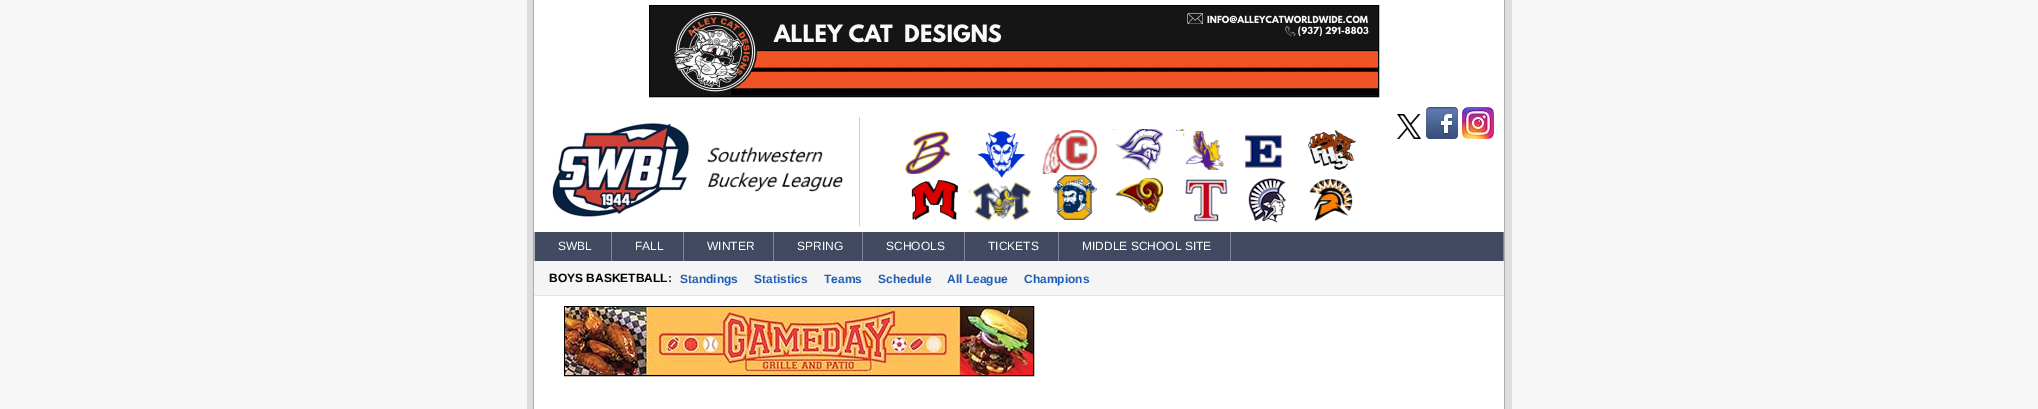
%!PS
<< /PageSize [2038 409] >> setpagedevice
/rgb { 3 { 255 div 3 1 roll } repeat setrgbcolor } def
/font { [ exch dup neg 0 0 3 -1 roll 0 0 ] selectfont } def
/text { moveto show } def
/picture { 5 dict begin { /h /w /y /x /name } { exch def } forall
  gsave x y translate w h scale
  w h 8 [w 0 0 h 0 0] name (r) file false 3 colorimage grestore end } def
0 409 translate 1 -1 scale
4 setmiterlimit
247 247 247 rgb
0 0 2038 409 rectfill
221 221 221 rgb
527 0 985 409 rectfill
255 255 255 rgb
534 0 970 409 rectfill
170 170 170 rgb
1504 0 1 409 rectfill
533 0 1 409 rectfill
0 0 0 rgb
649.5 5.5 729 91 rectstroke
(img_01.rgb) 650 6 728 90 picture
(img_02.rgb) 552 123 291 94 picture
204 204 204 rgb
859 117 1 109 rectfill
(img_03.rgb) 905 129 452 95 picture
(img_04.rgb) 1397 114 25 25 picture
(img_05.rgb) 1426 107 32 32 picture
(img_06.rgb) 1462 107 32 32 picture
66 74 98 rgb
535 232 968 29 rectfill
130 131 150 rgb
611 232 1 30 rectfill
177 177 188 rgb
534 232 1 30 rectfill
130 131 150 rgb
683 232 1 30 rectfill
773 232 1 30 rectfill
862 232 1 30 rectfill
964 232 1 30 rectfill
1058 232 1 30 rectfill
1230 232 1 30 rectfill
1503 232 1 30 rectfill
245 245 245 rgb
534 261 970 34 rectfill
229 229 229 rgb
534 295 970 1 rectfill
0 0 0 rgb
564.5 306.5 469 69 rectstroke
(img_07.rgb) 565 307 468 68 picture
/LiberationSans-Regular 12 font
255 255 255 rgb
(SWBL) 558 250 text
(FALL) 635 250 text
(WINTER) 707 250 text
(SPRING) 797 250 text
(SCHOOLS) 886 250 text
(TICKETS) 988 250 text
(MIDDLE SCHOOL SITE) 1082 250 text
/LiberationSans-Bold 12 font
0 0 0 rgb
(BOYS BASKETBALL:) 549 282 text
34 95 178 rgb
(Standings) 680 283 text
(Statistics) 754 283 text
(Teams) 824 283 text
(Schedule) 878 283 text
(All League) 947 283 text
(Champions) 1024 283 text
showpage
